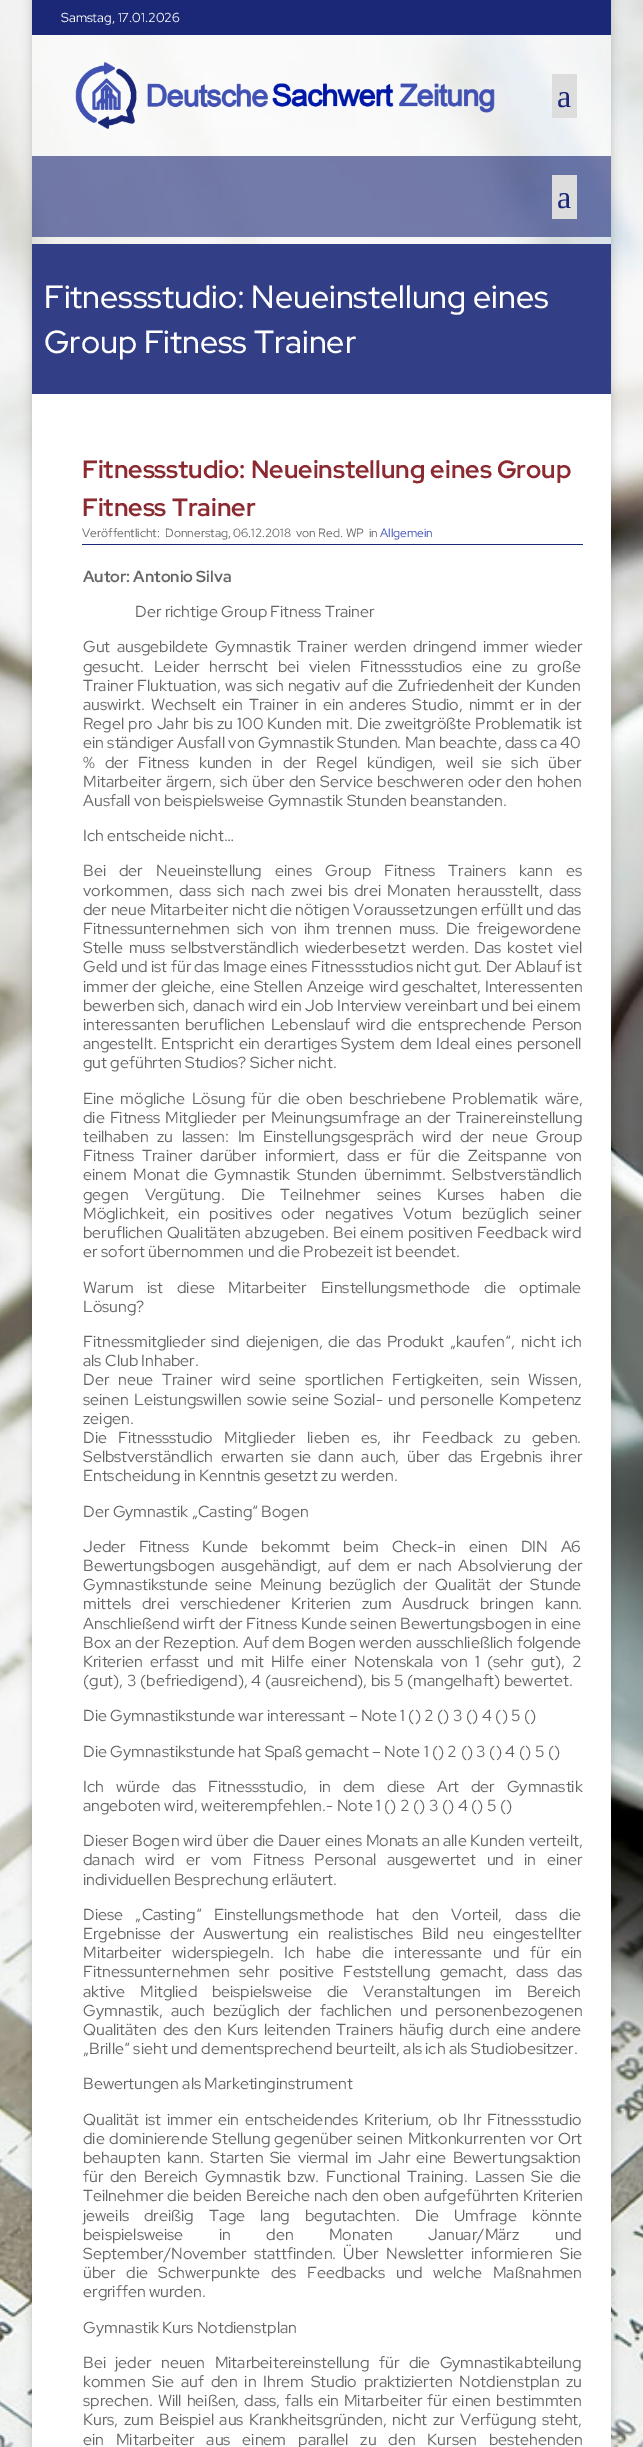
%!PS
<< /PageSize [643 2447] /PageUsesTransparency true >> setpagedevice
/rgb { 3 { 255 div 3 1 roll } repeat setrgbcolor } def
/font { [ exch dup neg 0 0 3 -1 roll 0 0 ] selectfont } def
/text { moveto show } def
/alpha { dup .setfillconstantalpha .setstrokeconstantalpha } def
/roundrect { 5 dict begin { /r /h /w /y /x } { exch def } forall
  x r add y moveto x w add y 2 copy h add r arct x w add y h add x 1 index r arct
  x y h add x y r arct x y 2 copy exch w add exch r arct closepath end } def
/shadow { 12 dict begin { /a /b /q /h /w /y /x } { exch def } forall gsave /was 0 def
  9 -2 -9 { dup b mul 4 div /e exch def 1 sub .425 mul 2.718 exch exp 1 add a .99 .min exch div /now exch def
    1 1 now sub 1 was sub div sub alpha /was now def
    w h .min e 2 mul add 0 gt { x e sub y e sub w e 2 mul add h e 2 mul add
      q e add b .6 mul add w h .min 2 div e add .min 0 .max roundrect fill } if } for grestore end } def
/picture { 5 dict begin { /h /w /y /x /name } { exch def } forall
  gsave x y translate w h scale
  w h 8 [w 0 0 h 0 0] name (r) file false 3 colorimage grestore end } def
0 .pushpdf14devicefilter
0 2447 translate 1 -1 scale
4 setmiterlimit
255 255 255 rgb
0 0 643 2447 rectfill
(img_01.rgb) 0 0 643 2447 picture
gsave
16 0 moveto 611 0 rlineto 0 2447 rlineto -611 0 rlineto closepath 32 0 moveto 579 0 rlineto 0 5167 rlineto -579 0 rlineto closepath eoclip newpath
0 0 0 rgb
32 0 579 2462 0 5 0.2 shadow
grestore
27 40 119 rgb
32 0 579 35 rectfill
0.43 alpha
255 255 255 rgb
32 35 579 121 rectfill
1 alpha
(img_02.rgb) 75 62 420 67 picture
221 221 221 rgb
552 74 25 44 rectfill
0.6 alpha
27 40 119 rgb
32 156 579 81 rectfill
1 alpha
221 221 221 rgb
552 175 25 44 rectfill
255 255 255 rgb
32 394 579 2053 rectfill
50 62 133 rgb
32 244 579 150 rectfill
27 40 119 rgb
82 544 501 1 rectfill
/RedHatDisplay-Regular 13 font
255 255 255 rgb
(Samstag, 17.01.2026) 61 22 text
/LiberationSerif-Regular 32 font
27 40 119 rgb
(a) 557 107 text
(a) 557 208 text
/RedHatDisplay-Medium 32 font
255 255 255 rgb
(Fitnessstudio: Neueinstellung eines) 44 308 text
(Group Fitness Trainer) 44 353 text
/RedHatDisplay-Bold 25 font
140 42 49 rgb
(Fitnessstudio: Neueinstellung eines Group) 82 478 text
(Fitness Trainer) 82 516 text
/RedHatDisplay-Regular 12 font
102 102 102 rgb
(Veröffentlicht:) 82 537 text
(Donnerstag, 06.12.2018) 165 537 text
(von Red. WP) 296 537 text
(in) 369 537 text
65 82 179 rgb
(Allgemein) 380 537 text
/RedHatDisplay-Bold 16 font
102 102 102 rgb
(Autor: Antonio Silva) 83 582 text
/RedHatDisplay-Regular 16 font
(Der richtige Group Fitness Trainer) 135 617 text
83 652 moveto 3 0 32 (Gut ausgebildete Gymnastik Trainer werden dringend immer wieder) widthshow
83 672 moveto 6.25 0 32 (gesucht. Leider herrscht bei vielen Fitnessstudios eine zu große) widthshow
83 691 moveto 0.75 0 32 (Trainer Fluktuation, was sich negativ auf die Zufriedenheit der Kunden) widthshow
83 710 moveto 2.4 0 32 (auswirkt. Wechselt ein Trainer in ein anderes Studio, nimmt er in der) widthshow
83 729 moveto 0.75 0 32 (Regel pro Jahr bis zu 100 Kunden mit. Die zweitgrößte Problematik ist) widthshow
(ein ständiger Ausfall von Gymnastik Stunden. Man beachte, dass ca 40) 83 748 text
83 768 moveto 6.25 0 32 (% der Fitness kunden in der Regel kündigen, weil sie sich über) widthshow
83 787 moveto 0.75 0 32 (Mitarbeiter ärgern, sich über den Service beschweren oder den hohen) widthshow
(Ausfall von beispielsweise Gymnastik Stunden beanstanden.) 83 806 text
(Ich entscheide nicht…) 83 841 text
83 876 moveto 9.75 0 32 (Bei der Neueinstellung eines Group Fitness Trainers kann es) widthshow
83 896 moveto 2.75 0 32 (vorkommen, dass sich nach zwei bis drei Monaten herausstellt, dass) widthshow
83 915 moveto 0.1 0 32 (der neue Mitarbeiter nicht die nötigen Voraussetzungen erfüllt und das) widthshow
83 934 moveto 3.25 0 32 (Fitnessunternehmen sich von ihm trennen muss. Die freigewordene) widthshow
83 953 moveto 2.4 0 32 (Stelle muss selbstverständlich wiederbesetzt werden. Das kostet viel) widthshow
(Geld und ist für das Image eines Fitnessstudios nicht gut. Der Ablauf ist) 83 972 text
83 992 moveto 0.75 0 32 (immer der gleiche, eine Stellen Anzeige wird geschaltet, Interessenten) widthshow
(bewerben sich, danach wird ein Job Interview vereinbart und bei einem) 83 1011 text
83 1030 moveto 2.25 0 32 (interessanten beruflichen Lebenslauf wird die entsprechende Person) widthshow
83 1049 moveto 1.25 0 32 (angestellt. Entspricht ein derartiges System dem Ideal eines personell) widthshow
(gut geführten Studios? Sicher nicht.) 83 1068 text
83 1104 moveto 3 0 32 (Eine mögliche Lösung für die oben beschriebene Problematik wäre,) widthshow
83 1123 moveto 1.5 0 32 (die Fitness Mitglieder per Meinungsumfrage an der Trainereinstellung) widthshow
83 1142 moveto 5 0 32 (teilhaben zu lassen: Im Einstellungsgespräch wird der neue Group) widthshow
83 1161 moveto 4.75 0 32 (Fitness Trainer darüber informiert, dass er für die Zeitspanne von) widthshow
83 1180 moveto 3.25 0 32 (einem Monat die Gymnastik Stunden übernimmt. Selbstverständlich) widthshow
83 1200 moveto 12.5 0 32 (gegen Vergütung. Die Teilnehmer seines Kurses haben die) widthshow
83 1219 moveto 6.25 0 32 (Möglichkeit, ein positives oder negatives Votum bezüglich seiner) widthshow
83 1238 moveto 0.75 0 32 (beruflichen Qualitäten abzugeben. Bei einem positiven Feedback wird) widthshow
(er sofort übernommen und die Probezeit ist beendet.) 83 1257 text
83 1293 moveto 10.25 0 32 (Warum ist diese Mitarbeiter Einstellungsmethode die optimale) widthshow
(Lösung?) 83 1312 text
83 1347 moveto 2.4 0 32 (Fitnessmitglieder sind diejenigen, die das Produkt „kaufen“, nicht ich) widthshow
(als Club Inhaber.) 83 1366 text
83 1385 moveto 5.25 0 32 (Der neue Trainer wird seine sportlichen Fertigkeiten, sein Wissen,) widthshow
83 1405 moveto 1.75 0 32 (seinen Leistungswillen sowie seine Sozial- und personelle Kompetenz) widthshow
(zeigen.) 83 1424 text
83 1443 moveto 8 0 32 (Die Fitnessstudio Mitglieder lieben es, ihr Feedback zu geben.) widthshow
83 1462 moveto 4.25 0 32 (Selbstverständlich erwarten sie dann auch, über das Ergebnis ihrer) widthshow
(Entscheidung in Kenntnis gesetzt zu werden.) 83 1481 text
(Der Gymnastik „Casting“ Bogen) 83 1517 text
83 1552 moveto 9.5 0 32 (Jeder Fitness Kunde bekommt beim Check-in einen DIN A6) widthshow
83 1571 moveto 3.25 0 32 (Bewertungsbogen ausgehändigt, auf dem er nach Absolvierung der) widthshow
83 1590 moveto 4 0 32 (Gymnastikstunde seine Meinung bezüglich der Qualität der Stunde) widthshow
83 1609 moveto 7.25 0 32 (mittels drei verschiedener Kriterien zum Ausdruck bringen kann.) widthshow
83 1629 moveto 0.25 0 32 (Anschließend wirft der Fitness Kunde seinen Bewertungsbogen in eine) widthshow
83 1648 moveto 0.25 0 32 (Box an der Rezeption. Auf dem Bogen werden ausschließlich folgende) widthshow
83 1667 moveto 3.9 0 32 (Kriterien erfasst und mit Hilfe einer Notenskala von 1 \(sehr gut\), 2) widthshow
(\(gut\), 3 \(befriedigend\), 4 \(ausreichend\), bis 5 \(mangelhaft\) bewertet.) 83 1686 text
(Die Gymnastikstunde war interessant – Note 1 \(\) 2 \(\) 3 \(\) 4 \(\) 5 \(\)) 83 1721 text
(Die Gymnastikstunde hat Spaß gemacht – Note 1 \(\) 2 \(\) 3 \(\) 4 \(\) 5 \(\)) 83 1757 text
83 1792 moveto 8.5 0 32 (Ich würde das Fitnessstudio, in dem diese Art der Gymnastik) widthshow
(angeboten wird, weiterempfehlen.- Note 1 \(\) 2 \(\) 3 \(\) 4 \(\) 5 \(\)) 83 1811 text
83 1846 moveto 0.25 0 32 (Dieser Bogen wird über die Dauer eines Monats an alle Kunden verteilt,) widthshow
83 1865 moveto 7.25 0 32 (danach wird er vom Fitness Personal ausgewertet und in einer) widthshow
(individuellen Besprechung erläutert.) 83 1885 text
83 1920 moveto 9 0 32 (Diese „Casting“ Einstellungsmethode hat den Vorteil, dass die) widthshow
83 1939 moveto 5.5 0 32 (Ergebnisse der Auswertung ein realistisches Bild neu eingestellter) widthshow
83 1958 moveto 7.25 0 32 (Mitarbeiter widerspiegeln. Ich habe die interessante und für ein) widthshow
83 1977 moveto 5.75 0 32 (Fitnessunternehmen sehr positive Feststellung gemacht, dass das) widthshow
83 1997 moveto 11.25 0 32 (aktive Mitglied beispielsweise die Veranstaltungen im Bereich) widthshow
83 2016 moveto 4.5 0 32 (Gymnastik, auch bezüglich der fachlichen und personenbezogenen) widthshow
83 2035 moveto 2.25 0 32 (Qualitäten des den Kurs leitenden Trainers häufig durch eine andere) widthshow
(„Brille“ sieht und dementsprechend beurteilt, als ich als Studiobesitzer.) 83 2054 text
(Bewertungen als Marketinginstrument) 83 2089 text
83 2125 moveto 2.4 0 32 (Qualität ist immer ein entscheidendes Kriterium, ob Ihr Fitnessstudio) widthshow
83 2144 moveto 1 0 32 (die dominierende Stellung gegenüber seinen Mitkonkurrenten vor Ort) widthshow
83 2163 moveto 2.75 0 32 (behaupten kann. Starten Sie viermal im Jahr eine Bewertungsaktion) widthshow
83 2182 moveto 3.25 0 32 (für den Bereich Gymnastik bzw. Functional Training. Lassen Sie die) widthshow
83 2201 moveto 0.75 0 32 (Teilnehmer die beiden Bereiche nach den oben aufgeführten Kriterien) widthshow
83 2221 moveto 11.5 0 32 (jeweils dreißig Tage lang begutachten. Die Umfrage könnte) widthshow
83 2240 moveto 32 0 32 (beispielsweise in den Monaten Januar/März und) widthshow
83 2259 moveto 3.75 0 32 (September/November stattfinden. Über Newsletter informieren Sie) widthshow
83 2278 moveto 7 0 32 (über die Schwerpunkte des Feedbacks und welche Maßnahmen) widthshow
(ergriffen wurden.) 83 2297 text
(Gymnastik Kurs Notdienstplan) 83 2333 text
83 2368 moveto 6 0 32 (Bei jeder neuen Mitarbeitereinstellung für die Gymnastikabteilung) widthshow
83 2387 moveto 3.25 0 32 (kommen Sie auf den in Ihrem Studio praktizierten Notdienstplan zu) widthshow
83 2406 moveto 1.5 0 32 (sprechen. Will heißen, dass, falls ein Mitarbeiter für einen bestimmten) widthshow
83 2425 moveto 2 0 32 (Kurs, zum Beispiel aus Krankheitsgründen, nicht zur Verfügung steht,) widthshow
83 2445 moveto 8.5 0 32 (ein Mitarbeiter aus einem parallel zu den Kursen bestehenden) widthshow
.poppdf14devicefilter showpage
